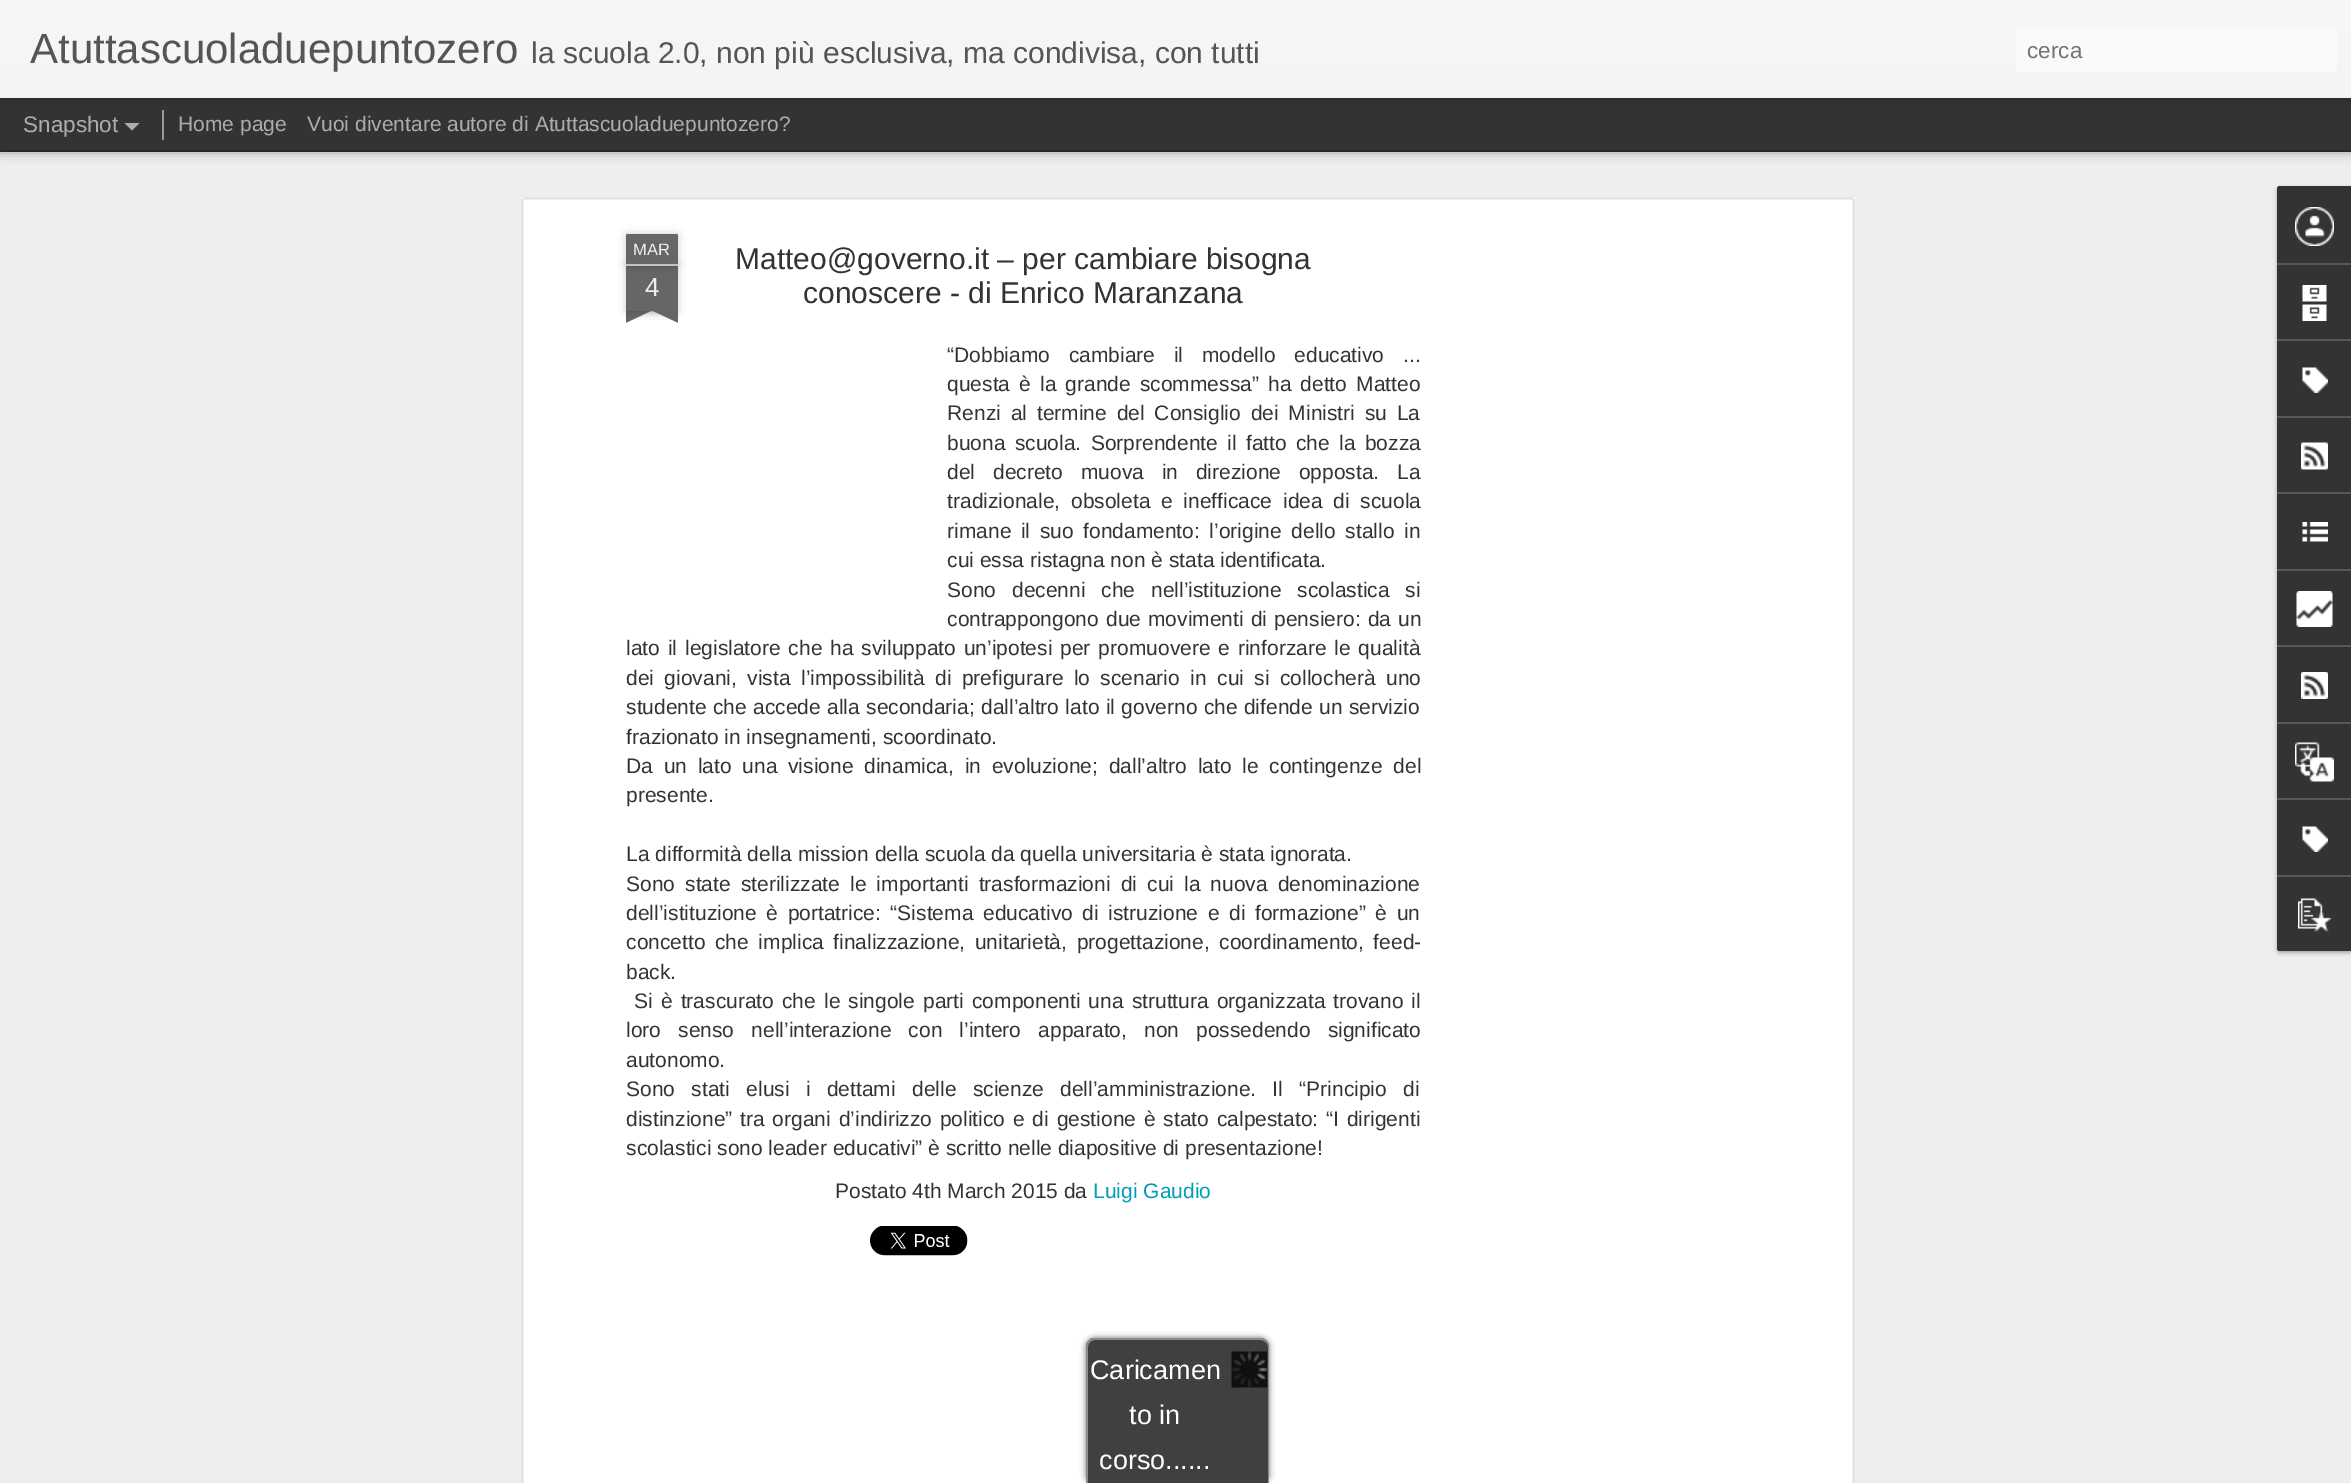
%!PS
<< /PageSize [2351 1483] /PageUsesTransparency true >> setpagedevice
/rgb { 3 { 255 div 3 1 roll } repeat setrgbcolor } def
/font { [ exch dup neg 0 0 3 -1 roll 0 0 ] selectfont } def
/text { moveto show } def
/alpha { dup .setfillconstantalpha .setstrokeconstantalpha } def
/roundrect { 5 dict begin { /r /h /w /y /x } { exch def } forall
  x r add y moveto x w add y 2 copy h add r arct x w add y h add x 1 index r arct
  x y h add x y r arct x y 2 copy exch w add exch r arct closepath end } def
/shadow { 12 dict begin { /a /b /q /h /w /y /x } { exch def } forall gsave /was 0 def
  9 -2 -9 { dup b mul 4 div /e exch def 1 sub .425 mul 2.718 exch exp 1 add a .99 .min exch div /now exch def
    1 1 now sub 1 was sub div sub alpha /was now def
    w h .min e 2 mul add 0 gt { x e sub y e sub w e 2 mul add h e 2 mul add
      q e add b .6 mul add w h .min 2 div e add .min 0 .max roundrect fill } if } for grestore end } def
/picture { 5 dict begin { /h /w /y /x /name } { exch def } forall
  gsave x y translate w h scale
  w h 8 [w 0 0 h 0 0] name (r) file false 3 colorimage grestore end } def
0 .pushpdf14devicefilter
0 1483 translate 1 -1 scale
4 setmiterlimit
51 51 51 rgb
0 0 2351 1483 rectfill
238 238 238 rgb
0 152 2351 1331 rectfill
0 0 0 rgb
0 98 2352 52 0 6 0.5 shadow
51 51 51 rgb
0 98 2351 52 rectfill
153 153 153 rgb
162 110 2 30 rectfill
0 0 0 rgb
0 0 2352 98 0 4 0.3 shadow
gsave 0 0 moveto 2351 0 rlineto 0 98 rlineto -2351 0 rlineto closepath clip newpath
<< /ShadingType 2 /ColorSpace /DeviceRGB /Coords [0 0 0 98] /Extend [true true] /Function << /FunctionType 2 /Domain [0 1] /C0 [0.969 0.969 0.969] /C1 [0.957 0.957 0.957] /N 1 >> >> shfill grestore
250 250 250 rgb
2016 27 321 45 5 roundrect fill
173 173 173 rgb
124.5 123 moveto 15 0 rlineto -7.5 7.5 rlineto closepath fill
255 255 255 rgb
521 197 1335 1286 rectfill
(img_01.rgb) 521 197 1335 1286 picture
0 0 0 rgb
626 266 52 45 0 4 0.2 shadow
102 102 102 rgb
626 266 52 45 rectfill
0 0 0 rgb
626 234 52 32 1.5 4 0.2 shadow
102 102 102 rgb
627.5 234 moveto 49 0 rlineto 1 0 1.5 0.5 1.5 1.5 rcurveto 0 30.5 rlineto -52 0 rlineto 0 -30.5 rlineto 0 -1 0.5 -1.5 1.5 -1.5 rcurveto closepath fill
194 194 194 rgb
626 264 52 2 rectfill
gsave
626 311 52 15 rectclip
0 0 0 rgb
612 296 75 15 0 4 0.2 shadow
grestore
gsave
626 311 52 15 rectclip
102 102 102 rgb
612 312 moveto 68 -32 rlineto 7 14 rlineto -68 32 rlineto closepath fill
grestore
gsave
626 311 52 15 rectclip
0 0 0 rgb
617 296 75 15 0 4 0.2 shadow
grestore
gsave
626 311 52 15 rectclip
102 102 102 rgb
623 280 moveto 68 32 rlineto -6 14 rlineto -68 -32 rlineto closepath fill
grestore
(img_02.rgb) 870 1226 98 30 picture
0 0 0 rgb
2277 188 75 765 3 2 0.3 shadow
51 51 51 rgb
2280 186 moveto 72 0 rlineto 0 765 rlineto -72 0 rlineto -1.5 0 -3 -1.5 -3 -3 rcurveto 0 -759 rlineto 0 -1.5 1.5 -3 3 -3 rcurveto closepath fill
2280 186 moveto 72 0 rlineto 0 77 rlineto -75 0 rlineto 0 -74 rlineto 0 -1.5 1.5 -3 3 -3 rcurveto closepath fill
(img_03.rgb) 2295 207 39 39 picture
88 88 88 rgb
2277 263 74 2 rectfill
(img_04.rgb) 2302 285 25 36 picture
2277 339 74 2 rectfill
(img_05.rgb) 2302 367 26 26 picture
2277 416 74 2 rectfill
(img_06.rgb) 2301 442 27 28 picture
2277 492 74 2 rectfill
(img_07.rgb) 2302 522 26 20 picture
2277 569 74 2 rectfill
(img_08.rgb) 2296 591 37 36 picture
2277 645 74 2 rectfill
(img_09.rgb) 2301 672 27 27 picture
2277 722 74 2 rectfill
(img_10.rgb) 2295 742 39 40 picture
2277 798 74 2 rectfill
(img_05.rgb) 2302 826 26 26 picture
51 51 51 rgb
2277 875 moveto 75 0 rlineto 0 76 rlineto -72 0 rlineto -1.5 0 -3 -1.5 -3 -3 rcurveto closepath fill
88 88 88 rgb
2277 875 74 2 rectfill
(img_11.rgb) 2298 898 33 34 picture
102 102 102 rgb
1086 1338 183 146 9 3 1 shadow
64 64 64 rgb
1095 1338 moveto 165 0 rlineto 5 0 9 4 9 9 rcurveto 0 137 rlineto -183 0 rlineto 0 -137 rlineto 0 -5 4 -9 9 -9 rcurveto closepath fill
140 140 140 rgb
1095 1338 moveto 165 0 rlineto 5 0 9 4 9 9 rcurveto 0 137 rlineto -183 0 rlineto 0 -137 rlineto 0 -5 4 -9 9 -9 rcurveto closepath 1095 1340 moveto 165 0 rlineto 4 0 8 3 8 7 rcurveto 0 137 rlineto -180 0 rlineto 0 -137 rlineto 0 -4 3 -7 7 -7 rcurveto closepath eofill
(img_12.rgb) 1231 1351 37 37 picture
/LiberationSans-Regular 42 font
85 85 85 rgb
(Atuttascuoladuepuntozero) 30 63 text
/LiberationSans-Regular 30 font
(la scuola 2.0, non più esclusiva, ma condivisa, con tutti) 531 63 text
/LiberationSans-Regular 22.5 font
117 117 117 rgb
(cerca) 2027 58 text
173 173 173 rgb
(Snapshot) 23 132 text
/LiberationSans-Regular 21 font
(Home page) 178 131 text
(Vuoi diventare autore di Atuttascuoladuepuntozero?) 307 131 text
/LiberationSans-Regular 16.5 font
238 238 238 rgb
(MAR) 633 255 text
/LiberationSans-Regular 26 font
(4) 645 296 text
/LiberationSans-Regular 30 font
51 51 51 rgb
(Matteo@governo.it – per cambiare bisogna) 735 269 text
(conoscere - di Enrico Maranzana) 803 303 text
/LiberationSans-Regular 21 font
947 362 moveto 13 0 32 (“Dobbiamo cambiare il modello educativo ...) widthshow
947 391 moveto 3.25 0 32 (questa è la grande scommessa” ha detto Matteo) widthshow
947 420 moveto 4 0 32 (Renzi al termine del Consiglio dei Ministri su La) widthshow
947 450 moveto 3.5 0 32 (buona scuola. Sorprendente il fatto che la bozza) widthshow
947 479 moveto 12 0 32 (del decreto muova in direzione opposta. La) widthshow
947 508 moveto 4.9 0 32 (tradizionale, obsoleta e inefficace idea di scuola) widthshow
947 538 moveto 3.75 0 32 (rimane il suo fondamento: l’origine dello stallo in) widthshow
(cui essa ristagna non è stata identificata.) 947 567 text
947 597 moveto 10 0 32 (Sono decenni che nell’istituzione scolastica si) widthshow
947 626 moveto 1.25 0 32 (contrappongono due movimenti di pensiero: da un) widthshow
626 655 moveto 2 0 32 (lato il legislatore che ha sviluppato un’ipotesi per promuovere e rinforzare le qualità) widthshow
626 685 moveto 4.6 0 32 (dei giovani, vista l’impossibilità di prefigurare lo scenario in cui si collocherà uno) widthshow
626 714 moveto 0.5 0 32 (studente che accede alla secondaria; dall’altro lato il governo che difende un servizio) widthshow
(frazionato in insegnamenti, scoordinato.) 626 744 text
626 773 moveto 4.9 0 32 (Da un lato una visione dinamica, in evoluzione; dall’altro lato le contingenze del) widthshow
(presente.) 626 802 text
(La difformità della mission della scuola da quella universitaria è stata ignorata.) 626 861 text
626 891 moveto 4.25 0 32 (Sono state sterilizzate le importanti trasformazioni di cui la nuova denominazione) widthshow
626 920 moveto 3.75 0 32 (dell’istituzione è portatrice: “Sistema educativo di istruzione e di formazione” è un) widthshow
626 949 moveto 3.75 0 32 (concetto che implica finalizzazione, unitarietà, progettazione, coordinamento, feed-) widthshow
(back.) 626 979 text
634 1008 moveto 2.25 0 32 (Si è trascurato che le singole parti componenti una struttura organizzata trovano il) widthshow
626 1037 moveto 11.25 0 32 (loro senso nell’interazione con l’intero apparato, non possedendo significato) widthshow
(autonomo.) 626 1067 text
626 1096 moveto 10.5 0 32 (Sono stati elusi i dettami delle scienze dell’amministrazione. Il “Principio di) widthshow
626 1126 moveto 2 0 32 (distinzione” tra organi d’indirizzo politico e di gestione è stato calpestato: “I dirigenti) widthshow
(scolastici sono leader educativi” è scritto nelle diapositive di presentazione!) 626 1155 text
(Postato 4th March 2015 da) 835 1198 text
0 158 184 rgb
(Luigi Gaudio) 1093 1198 text
/LiberationSans-Regular 27 font
255 255 255 rgb
(Caricamen) 1090 1379 text
(to in) 1129 1424 text
(corso......) 1099 1469 text
.poppdf14devicefilter showpage
